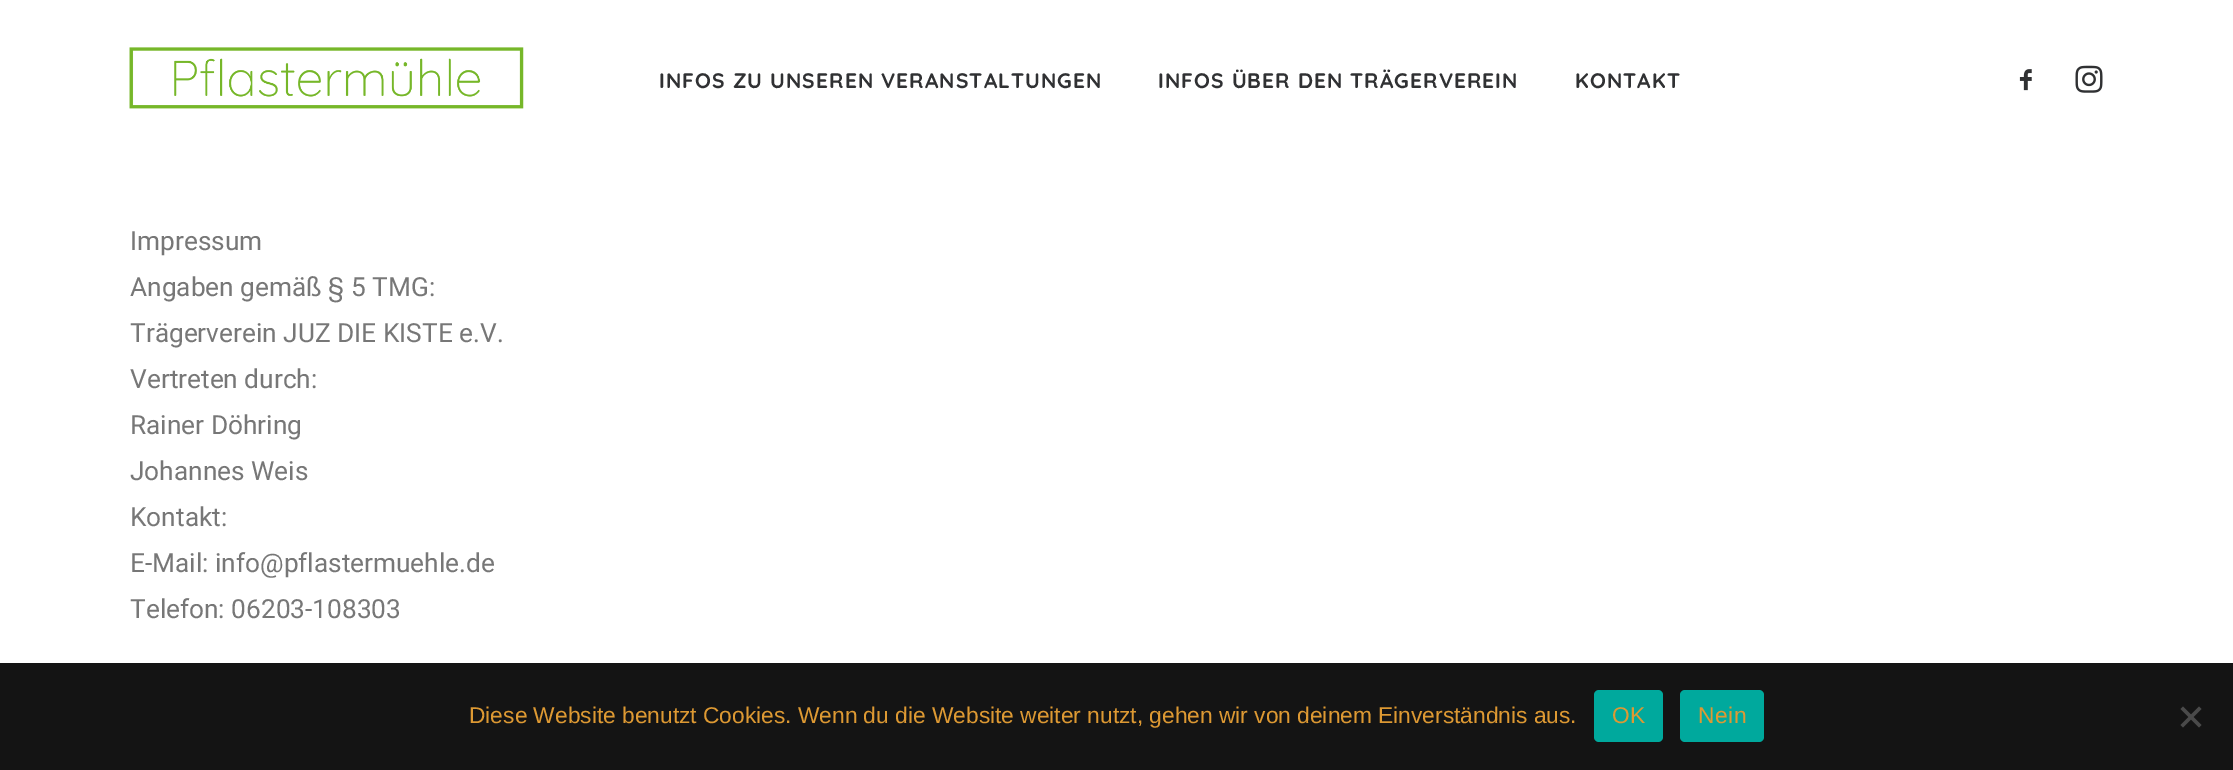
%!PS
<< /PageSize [2233 770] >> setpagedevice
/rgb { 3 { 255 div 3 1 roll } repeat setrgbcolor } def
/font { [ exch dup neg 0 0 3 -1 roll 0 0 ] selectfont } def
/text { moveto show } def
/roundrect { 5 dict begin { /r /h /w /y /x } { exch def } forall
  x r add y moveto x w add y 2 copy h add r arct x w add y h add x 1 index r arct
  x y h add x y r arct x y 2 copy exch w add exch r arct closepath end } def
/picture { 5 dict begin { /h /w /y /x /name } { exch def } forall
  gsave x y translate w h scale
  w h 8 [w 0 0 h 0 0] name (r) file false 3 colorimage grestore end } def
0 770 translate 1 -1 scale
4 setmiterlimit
255 255 255 rgb
0 0 2233 770 rectfill
(img_01.rgb) 129 47 395 62 picture
(img_02.rgb) 2019 69 13 22 picture
(img_03.rgb) 2075 65 28 28 picture
20 20 20 rgb
0 663 2233 107 rectfill
0 169 157 rgb
1594 690 69 52 5 roundrect fill
1680 690 84 52 5 roundrect fill
74 74 74 rgb
2199 706.5 moveto 2.5 2.5 rlineto -18.5 18.5 rlineto -2.5 -2.5 rlineto closepath fill
2180.5 709 moveto 2.5 -2.5 rlineto 18.5 18.5 rlineto -2.5 2.5 rlineto closepath fill
/Quicksand-Bold 21 font
48 49 51 rgb
659 88 moveto 1.05 0 (INFOS ZU UNSEREN VERANSTALTUNGEN) ashow
1158 88 moveto 1.05 0 (INFOS ÜBER DEN TRÄGERVEREIN) ashow
1575 88 moveto 1.05 0 (KONTAKT) ashow
/Roboto-Regular 26.25 font
119 119 119 rgb
(Impressum) 130 250 text
(Angaben gemäß § 5 TMG:) 130 296 text
(Trägerverein JUZ DIE KISTE e.V.) 130 342 text
(Vertreten durch:) 130 388 text
(Rainer Döhring) 130 434 text
(Johannes Weis) 130 480 text
(Kontakt:) 130 526 text
(E-Mail: info@pflastermuehle.de) 130 572 text
(Telefon: 06203-108303) 130 618 text
/LiberationSans-Regular 22.75 font
221 153 51 rgb
(Diese Website benutzt Cookies. Wenn du die Website weiter nutzt, gehen wir von deinem Einverständnis aus.) 469 723 text
1612 723 moveto 0.5 0 (OK) ashow
1698 723 moveto 0.5 0 (Nein) ashow
showpage
